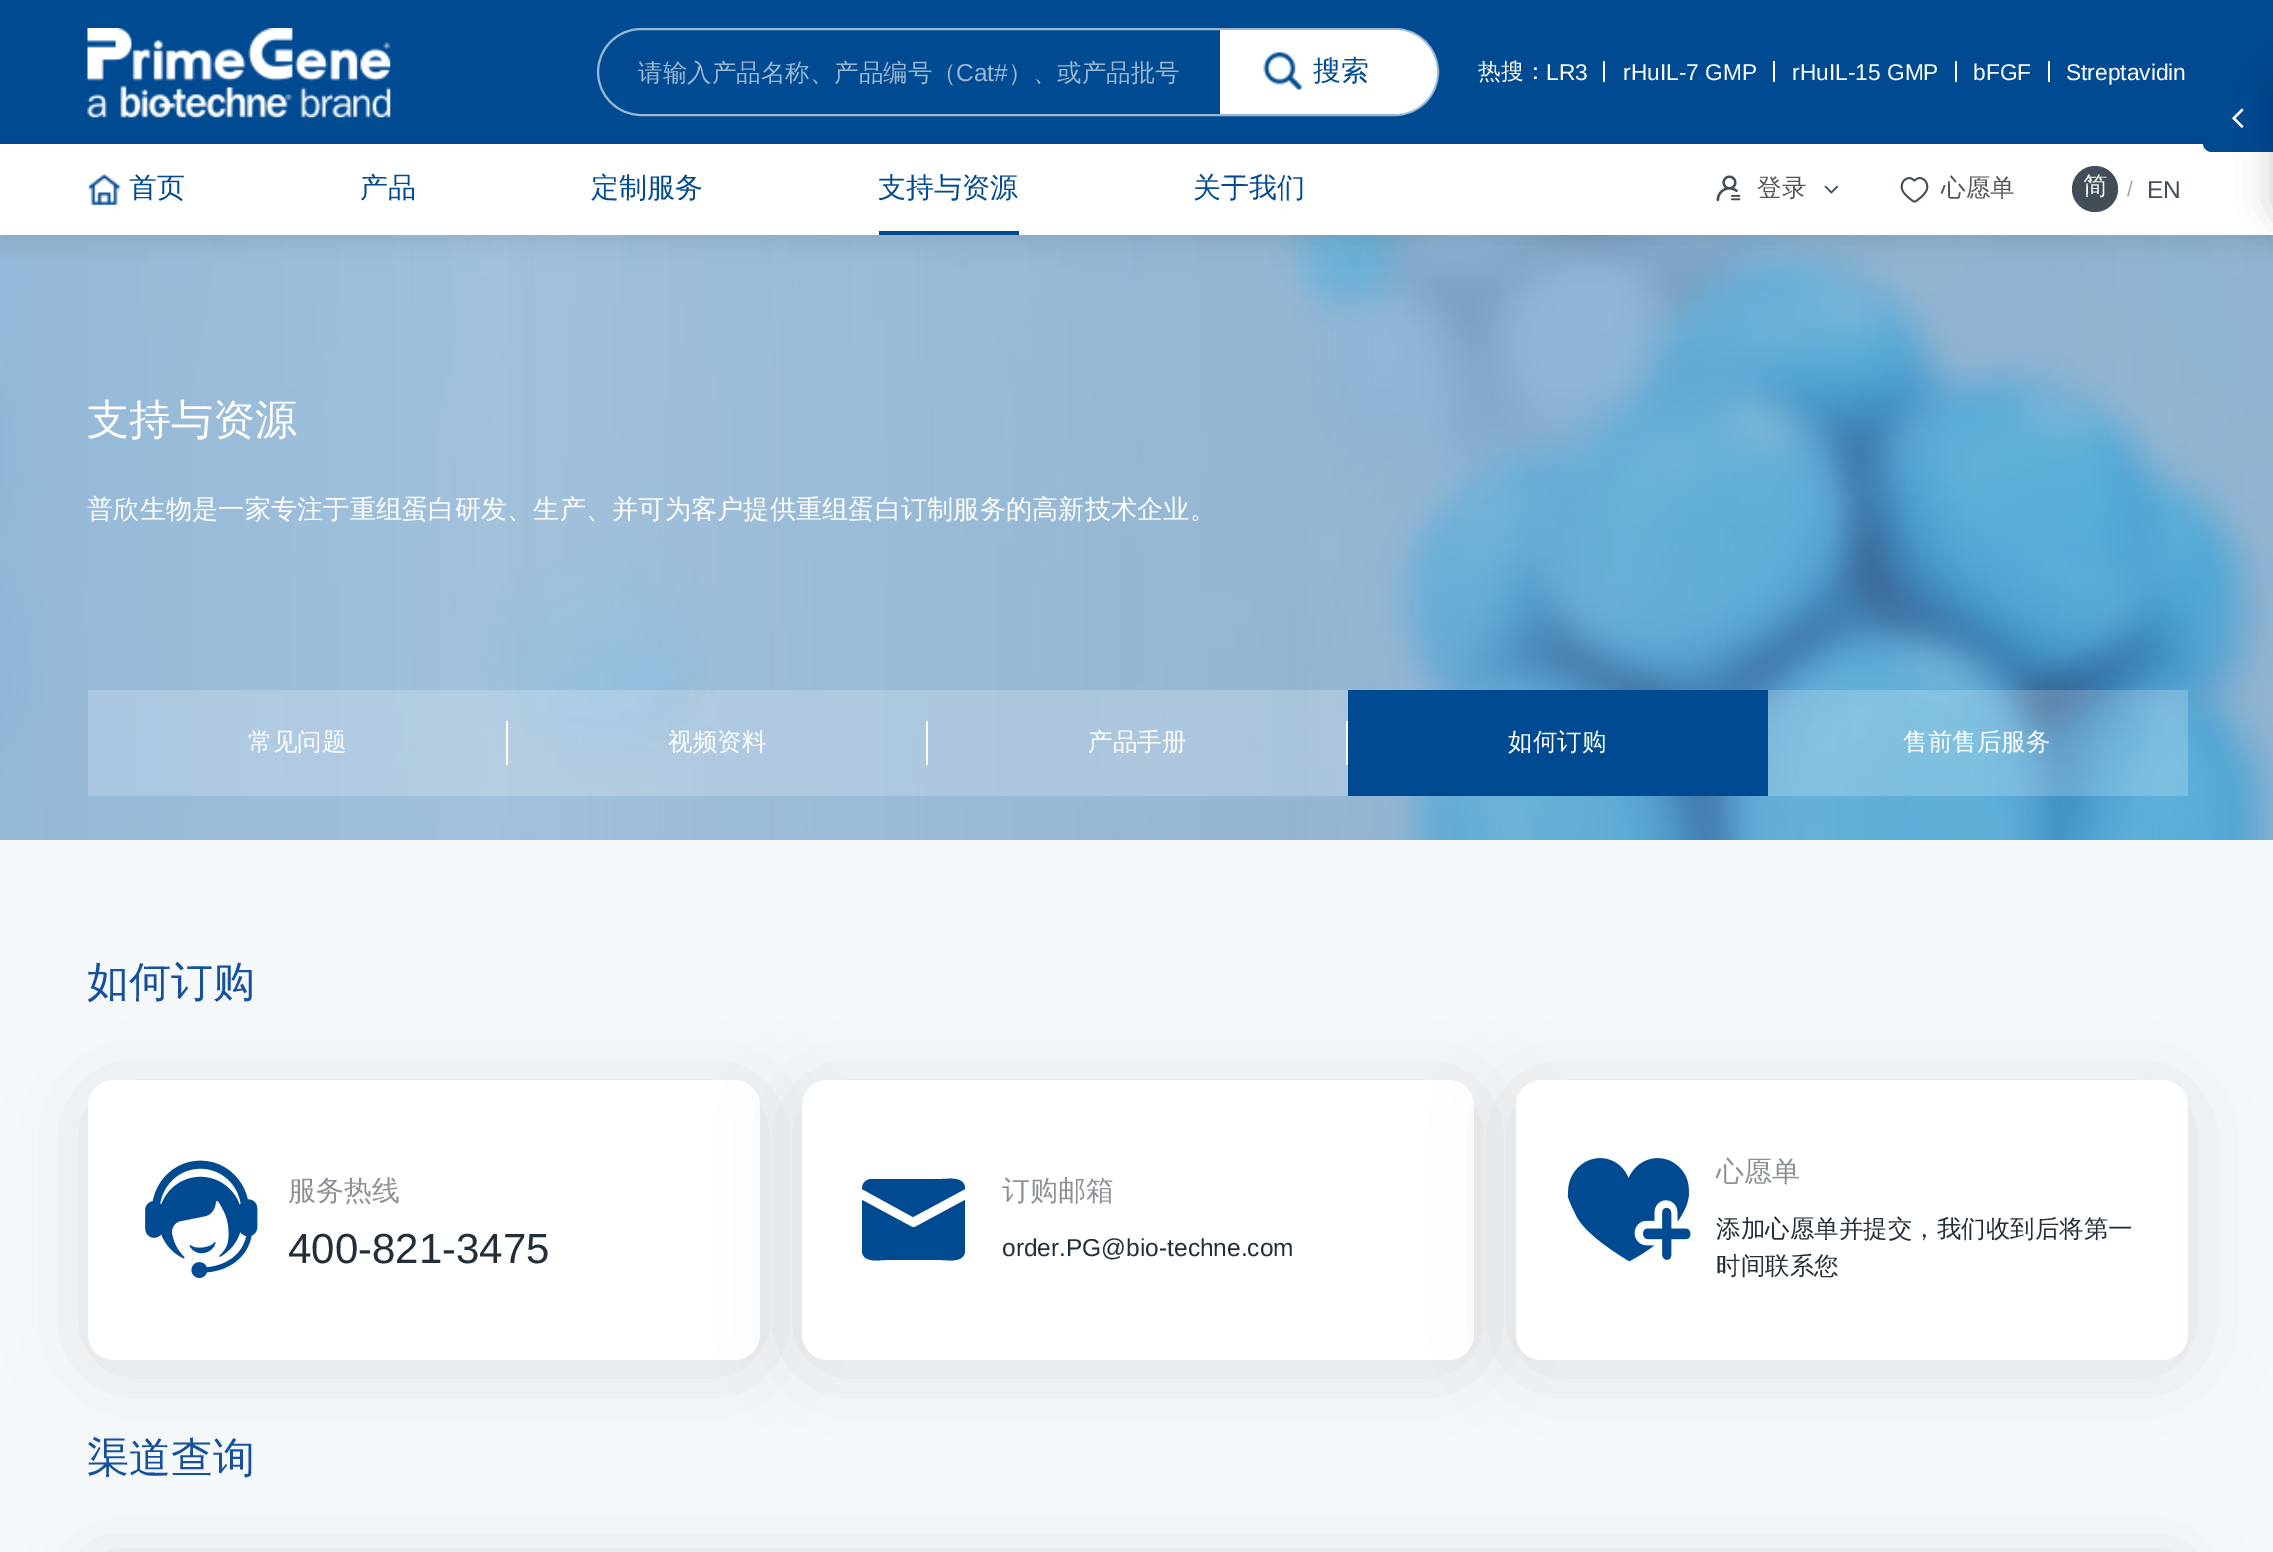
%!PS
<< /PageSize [2273 1552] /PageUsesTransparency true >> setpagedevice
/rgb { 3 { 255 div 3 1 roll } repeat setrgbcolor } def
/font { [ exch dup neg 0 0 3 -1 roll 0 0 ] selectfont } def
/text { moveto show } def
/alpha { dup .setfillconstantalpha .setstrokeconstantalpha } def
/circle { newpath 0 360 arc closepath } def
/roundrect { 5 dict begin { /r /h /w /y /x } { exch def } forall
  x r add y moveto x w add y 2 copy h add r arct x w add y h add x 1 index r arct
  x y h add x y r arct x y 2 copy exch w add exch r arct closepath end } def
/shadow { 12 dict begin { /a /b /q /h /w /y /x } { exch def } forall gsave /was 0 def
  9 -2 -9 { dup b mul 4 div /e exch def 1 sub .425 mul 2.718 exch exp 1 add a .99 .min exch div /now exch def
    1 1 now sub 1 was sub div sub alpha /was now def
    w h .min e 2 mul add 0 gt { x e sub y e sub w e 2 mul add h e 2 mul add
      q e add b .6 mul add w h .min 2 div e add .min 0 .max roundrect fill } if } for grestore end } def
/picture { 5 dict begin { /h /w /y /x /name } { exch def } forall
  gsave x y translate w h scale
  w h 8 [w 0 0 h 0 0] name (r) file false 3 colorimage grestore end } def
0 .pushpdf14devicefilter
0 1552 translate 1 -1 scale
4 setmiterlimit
0 74 145 rgb
0 0 2273 1552 rectfill
(img_01.rgb) 87 28 304 90 picture
153 183 211 rgb
2 setlinewidth
598 29 840 86 43 roundrect stroke
255 255 255 rgb
1220 30 moveto 175 0 rlineto 23 0 42 19 42 42 rcurveto 0 23 -19 42 -42 42 rcurveto -175 0 rlineto closepath fill
(img_02.rgb) 1263 52 39 39 picture
1603 61 2 21 rectfill
1773 61 2 21 rectfill
1955 61 2 21 rectfill
2048 61 2 21 rectfill
(img_08.rgb) 0 235 2273 605 picture
0 0 0 rgb
0 152 2273 91 0 10.5 0.08 shadow
255 255 255 rgb
0 144 2273 91 rectfill
0 74 145 rgb
2212 82 moveto 61 0 rlineto 0 70 rlineto -61 0 rlineto -5 0 -9 -4 -9 -9 rcurveto 0 -52 rlineto 0 -5 4 -9 9 -9 rcurveto closepath fill
(img_03.rgb) 2232 108 12 20 picture
0 0 0 rgb
2273 77 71 144 18 17.5 0.2 shadow
(img_04.rgb) 87 174 34 31 picture
0 74 145 rgb
879 231 140 4 rectfill
(img_05.rgb) 1716 175 25 27 picture
(img_06.rgb) 1824 185 15 9 picture
(img_07.rgb) 1900 177 29 26 picture
66 77 87 rgb
2095 189 23 circle fill
0.2 alpha
255 255 255 rgb
88 690 420 106 rectfill
1 alpha
506 721 2 44 rectfill
0.2 alpha
508 690 420 106 rectfill
1 alpha
926 721 2 44 rectfill
0.2 alpha
928 690 420 106 rectfill
1 alpha
1346 721 2 44 rectfill
0 74 145 rgb
1348 690 420 106 rectfill
0.2 alpha
255 255 255 rgb
1768 690 420 106 rectfill
1 alpha
246 249 251 rgb
0 840 2273 712 rectfill
0 0 0 rgb
88 1089 672 280 26 40 0.1 shadow
255 255 255 rgb
88 1080 672 280 26 roundrect fill
(img_09.rgb) 145 1160 113 118 picture
0 0 0 rgb
802 1089 672 280 26 40 0.1 shadow
255 255 255 rgb
802 1080 672 280 26 roundrect fill
0 74 145 rgb
872 1179 moveto 69 0 rlineto 8 0 24 -3 24 10 rcurveto -52 28 rlineto -51 -28 rlineto 0 -6 4 -10 10 -10 rcurveto closepath 862 1200 moveto 0 52 rlineto 2 11 16 8 24 8 rcurveto 55 0 rlineto 7 0 22 3 24 -8 rcurveto 0 -52 rlineto -50 27 rlineto -1 0 -2 0 -3 0 rcurveto closepath fill
0 0 0 rgb
1516 1089 672 280 26 40 0.1 shadow
255 255 255 rgb
1516 1080 672 280 26 roundrect fill
(img_10.rgb) 1567 1158 124 104 picture
0 0 0 rgb
88 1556 2100 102 14 30.5 0.1 shadow
/WenQuanYiZenHei-Medium 24.5 font
153 183 211 rgb
(请输入产品名称、产品编号（) 638 81 text
/LiberationSans-Regular 24.5 font
(Cat#) 956 81 text
/WenQuanYiZenHei-Medium 24.5 font
(）、或产品批号) 1008 81 text
/WenQuanYiZenHei-Medium 28 font
0 74 145 rgb
(搜索) 1313 80 text
/WenQuanYiZenHei-Medium 22.75 font
255 255 255 rgb
(热搜：) 1478 79 text
/LiberationSans-Regular 22.75 font
(LR3) 1546 80 text
(rHuIL-7 GMP) 1623 80 text
(rHuIL-15 GMP) 1792 80 text
(bFGF) 1973 80 text
(Streptavidin) 2066 80 text
/WenQuanYiZenHei-Medium 28 font
0 74 145 rgb
(首页) 129 197 text
(产品) 360 197 text
(定制服务) 591 197 text
(支持与资源) 878 197 text
(关于我们) 1193 197 text
/WenQuanYiZenHei-Medium 24.5 font
85 85 85 rgb
(登录) 1757 196 text
(心愿单) 1941 196 text
255 255 255 rgb
(简) 2083 194 text
/LiberationSans-Regular 21 font
161 166 171 rgb
(/) 2127 196 text
/LiberationSans-Regular 24.5 font
66 77 87 rgb
(EN) 2147 198 text
/WenQuanYiZenHei-Medium 42 font
255 255 255 rgb
(支持与资源) 87 434 text
/WenQuanYiZenHei-Medium 26.25 font
(普欣生物是一家专注于重组蛋白研发、生产、并可为客户提供重组蛋白订制服务的高新技术企业。) 87 518 text
/WenQuanYiZenHei-Medium 24.5 font
(常见问题) 248 750 text
(视频资料) 668 750 text
(产品手册) 1088 750 text
(如何订购) 1508 750 text
(售前售后服务) 1903 750 text
/WenQuanYiZenHei-Medium 42 font
23 80 157 rgb
(如何订购) 87 996 text
/WenQuanYiZenHei-Medium 28 font
140 145 152 rgb
(服务热线) 288 1200 text
/LiberationSans-Regular 42 font
34 46 57 rgb
(400-821-3475) 288 1263 text
/WenQuanYiZenHei-Medium 28 font
140 145 152 rgb
(订购邮箱) 1002 1200 text
/LiberationSans-Regular 24.5 font
34 46 57 rgb
(order.PG@bio-techne.com) 1002 1256 text
/WenQuanYiZenHei-Medium 28 font
140 145 152 rgb
(心愿单) 1716 1181 text
/WenQuanYiZenHei-Medium 24.5 font
34 46 57 rgb
(添加心愿单并提交，我们收到后将第一) 1716 1237 text
(时间联系您) 1716 1274 text
/WenQuanYiZenHei-Medium 42 font
23 80 157 rgb
(渠道查询) 87 1472 text
.poppdf14devicefilter showpage
